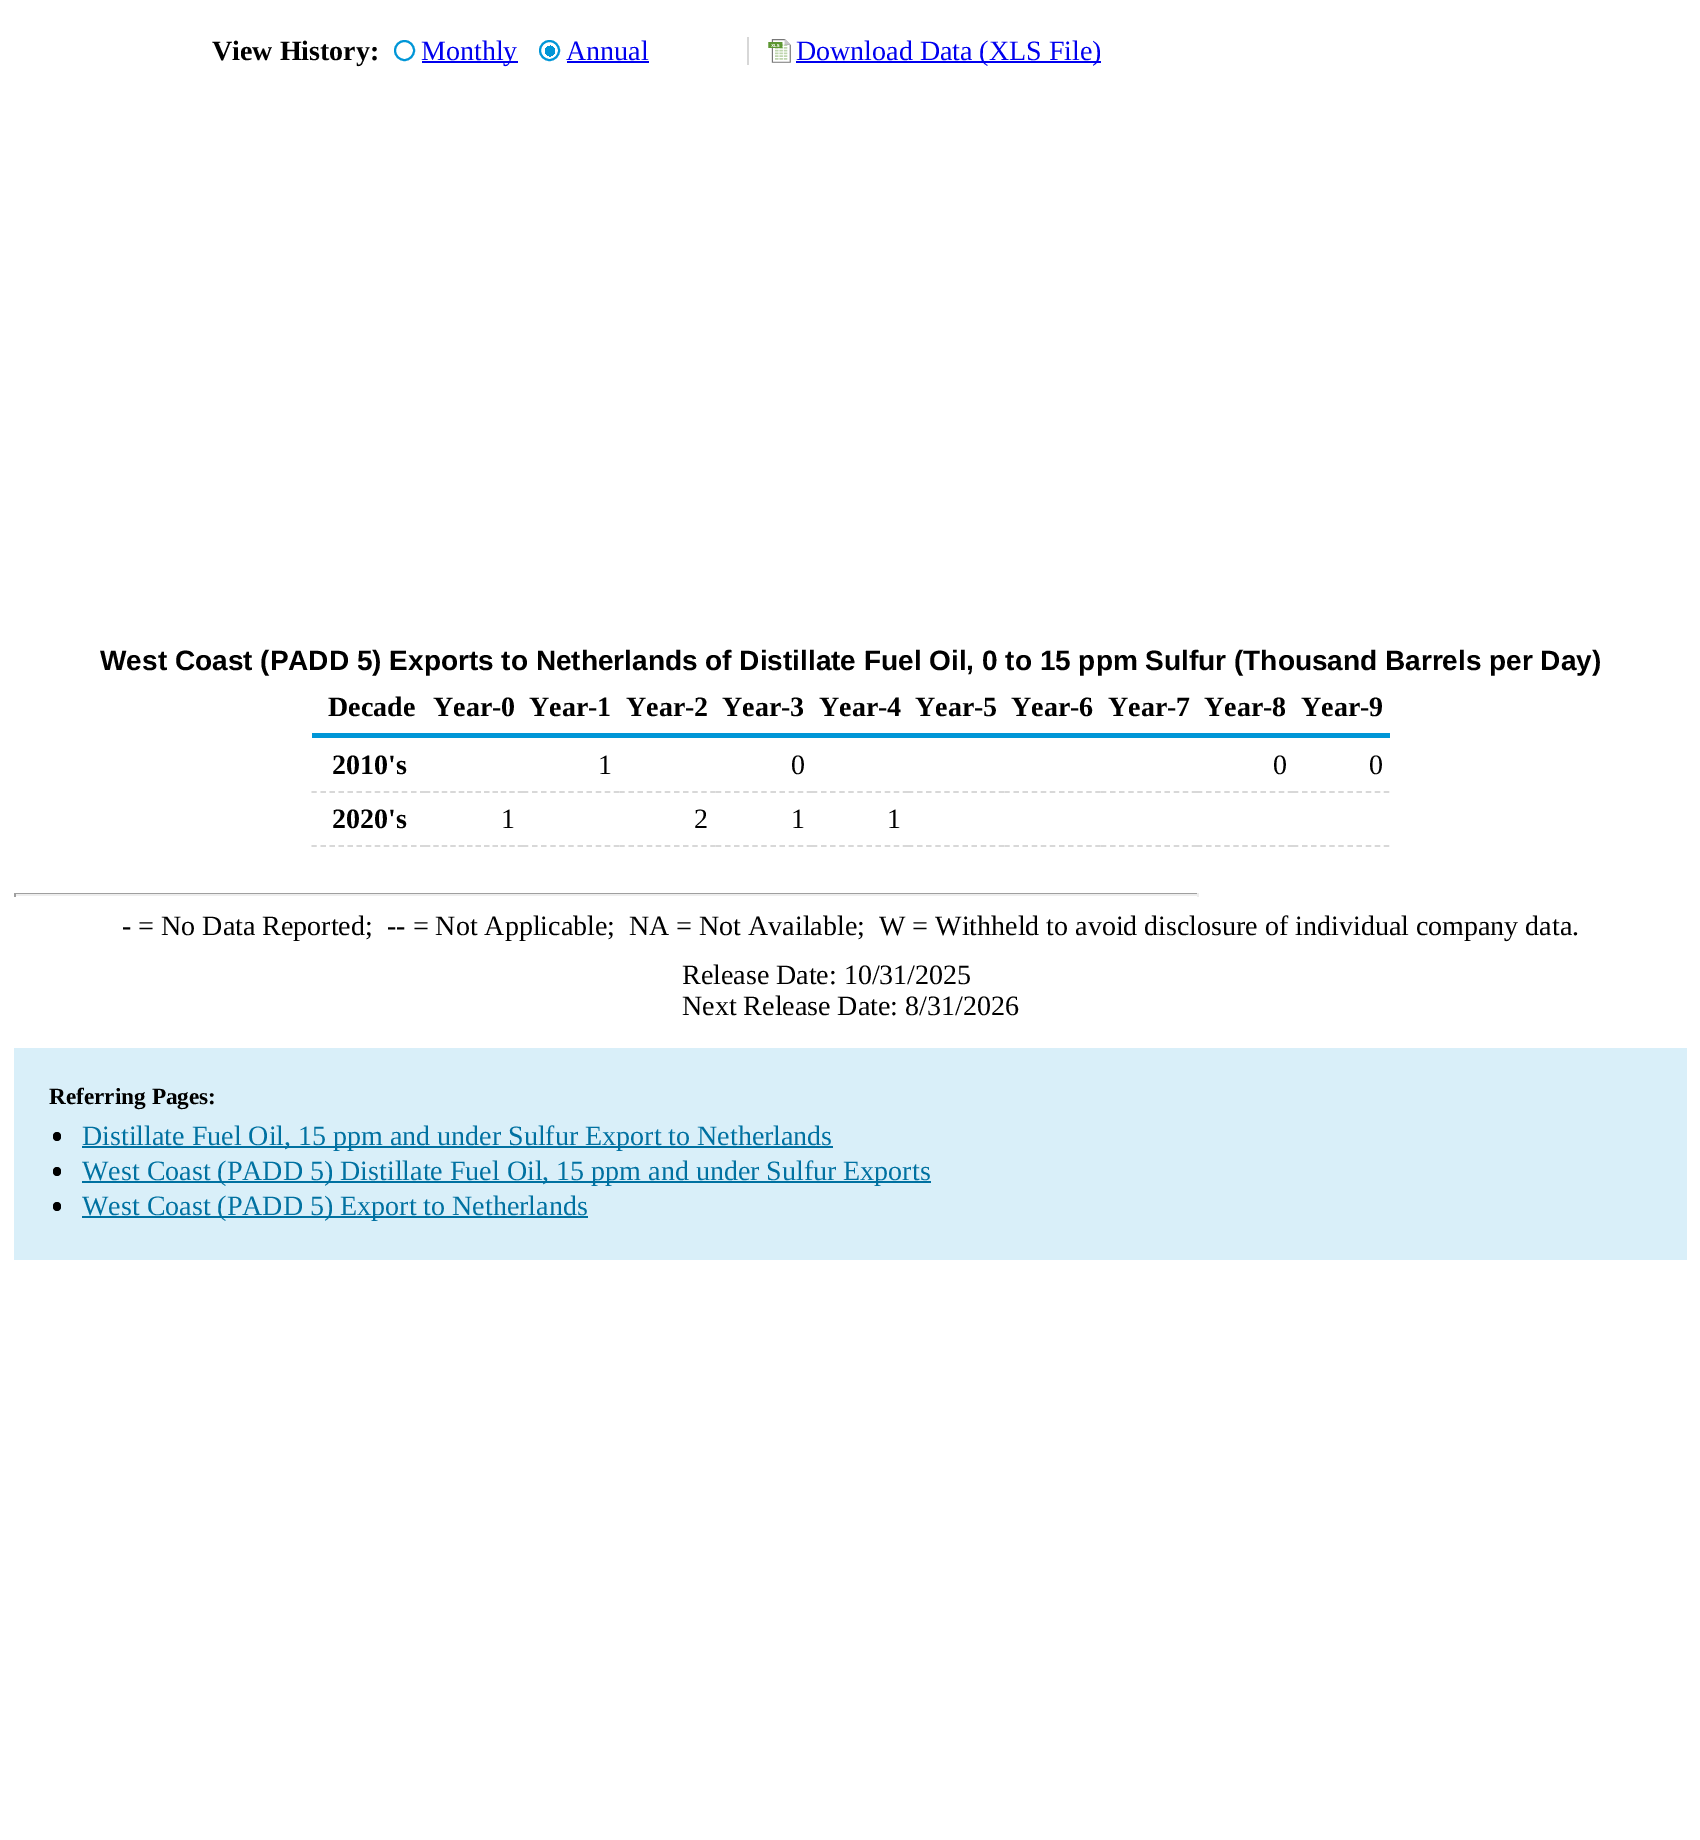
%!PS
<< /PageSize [1700 1840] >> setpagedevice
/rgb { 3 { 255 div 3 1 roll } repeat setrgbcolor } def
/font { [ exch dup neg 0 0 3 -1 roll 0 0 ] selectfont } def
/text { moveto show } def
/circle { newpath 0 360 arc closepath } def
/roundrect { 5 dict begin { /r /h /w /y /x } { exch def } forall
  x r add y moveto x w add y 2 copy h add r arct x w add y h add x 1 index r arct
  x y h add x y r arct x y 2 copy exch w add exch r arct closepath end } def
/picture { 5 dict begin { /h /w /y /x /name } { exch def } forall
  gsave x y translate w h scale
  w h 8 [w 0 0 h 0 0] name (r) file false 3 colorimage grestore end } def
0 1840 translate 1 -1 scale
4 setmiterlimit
255 255 255 rgb
0 0 1700 1840 rectfill
0 150 215 rgb
2 setlinewidth
404.5 50.5 9.5 circle stroke
0 0 238 rgb
422 61 96 2 rectfill
gsave
539 40 21 21 10.5 roundrect clip newpath
gsave 541 42 moveto 17 0 rlineto 0 18 rlineto -17 0 rlineto closepath clip newpath 550 51 translate 12 12 scale
<< /ShadingType 3 /ColorSpace /DeviceRGB /Coords [0 0 0 0 0 1] /Extend [true true] /Function << /FunctionType 3 /Domain [0 1] /Functions [<< /FunctionType 2 /Domain [0 1] /C0 [0 0.588 0.843] /C1 [0 0.588 0.843] /N 1 >> << /FunctionType 2 /Domain [0 1] /C0 [1 1 1] /C1 [1 1 1] /N 1 >>] /Bounds [0.45] /Encode [0 1 0 1] >> >> shfill grestore
grestore
0 150 215 rgb
549.5 50.5 9.5 circle stroke
0 0 238 rgb
567 61 82 2 rectfill
215 215 215 rgb
747 37 2 28 rectfill
(img_01.rgb) 768 39 23 24 picture
0 0 238 rgb
796 61 305 2 rectfill
0 150 215 rgb
312 733 1078 5 rectfill
216 216 216 rgb
1.8 setlinewidth
[5.25 3.8] 0 setdash
311.5 792 moveto 113.5 0 rlineto stroke
[5.25 3.85] 0 setdash
523 792 moveto 96.5 0 rlineto stroke
716 792 moveto 96 0 rlineto stroke
1197 792 moveto 96 0 rlineto stroke
1293 792 moveto 96.5 0 rlineto stroke
[5.25 3.19] 0 setdash
425 792 moveto 98 0 rlineto stroke
[5.25 3.85] 0 setdash
619.5 792 moveto 96.5 0 rlineto stroke
812 792 moveto 96 0 rlineto stroke
908 792 moveto 96.5 0 rlineto stroke
1004.5 792 moveto 96.5 0 rlineto stroke
1101 792 moveto 96 0 rlineto stroke
[5.25 3.8] 0 setdash
311.5 846 moveto 113.5 0 rlineto stroke
[5.25 3.19] 0 setdash
425 846 moveto 98 0 rlineto stroke
[5.25 3.85] 0 setdash
523 846 moveto 96.5 0 rlineto stroke
619.5 846 moveto 96.5 0 rlineto stroke
716 846 moveto 96 0 rlineto stroke
812 846 moveto 96 0 rlineto stroke
908 846 moveto 96.5 0 rlineto stroke
1004.5 846 moveto 96.5 0 rlineto stroke
1101 846 moveto 96 0 rlineto stroke
1197 846 moveto 96 0 rlineto stroke
1293 846 moveto 96.5 0 rlineto stroke
159 159 159 rgb
14 893 1185 1 rectfill
238 238 238 rgb
1197 893 2 4 rectfill
14 894 1185 2 rectfill
159 159 159 rgb
14 893 2 4 rectfill
217 239 249 rgb
14 1048 1673 212 rectfill
0 0 0 rgb
53 1132 8 9 4 roundrect fill
0 113 161 rgb
82 1146 751 2 rectfill
0 0 0 rgb
53 1167 8 9 4 roundrect fill
0 113 161 rgb
82 1181 849 2 rectfill
0 0 0 rgb
53 1202 8 9 4 roundrect fill
0 113 161 rgb
82 1216 506 2 rectfill
/LiberationSerif-Bold 28 font
0 0 0 rgb
(View History:) 212 60 text
/LiberationSerif-Regular 28 font
0 0 238 rgb
(Monthly) 421 60 text
(Annual) 566 60 text
(Download Data \(XLS File\)) 796 60 text
/LiberationSans-Bold 28 font
0 0 0 rgb
(West Coast \(PADD 5\) Exports to Netherlands of Distillate Fuel Oil, 0 to 15 ppm Sulfur \(Thousand Barrels per Day\)) 100 670 text
/LiberationSerif-Bold 28 font
(Decade) 328 716 text
(Year-0) 433 716 text
(Year-1) 529 716 text
(Year-2) 626 716 text
(Year-3) 722 716 text
(Year-4) 819 716 text
(Year-5) 915 716 text
(Year-6) 1011 716 text
(Year-7) 1108 716 text
(Year-8) 1204 716 text
(Year-9) 1301 716 text
(2010's) 332 774 text
/LiberationSerif-Regular 28 font
(1) 598 774 text
(0) 791 774 text
(0) 1273 774 text
(0) 1369 774 text
/LiberationSerif-Bold 28 font
(2020's) 332 828 text
/LiberationSerif-Regular 28 font
(1) 501 828 text
(2) 694 828 text
(1) 791 828 text
(1) 887 828 text
(- = No Data Reported;) 122 935 text
(-- = Not Applicable;) 387 935 text
(NA = Not Available;) 629 935 text
(W = Withheld to avoid disclosure of individual company data.) 879 935 text
(Release Date: 10/31/2025) 682 984 text
(Next Release Date: 8/31/2026) 682 1015 text
/LiberationSerif-Bold 23.25 font
(Referring Pages:) 49 1104 text
/LiberationSerif-Regular 28 font
0 113 161 rgb
(Distillate Fuel Oil, 15 ppm and under Sulfur Export to Netherlands) 82 1145 text
(West Coast \(PADD 5\) Distillate Fuel Oil, 15 ppm and under Sulfur Exports) 82 1180 text
(West Coast \(PADD 5\) Export to Netherlands) 82 1215 text
showpage
